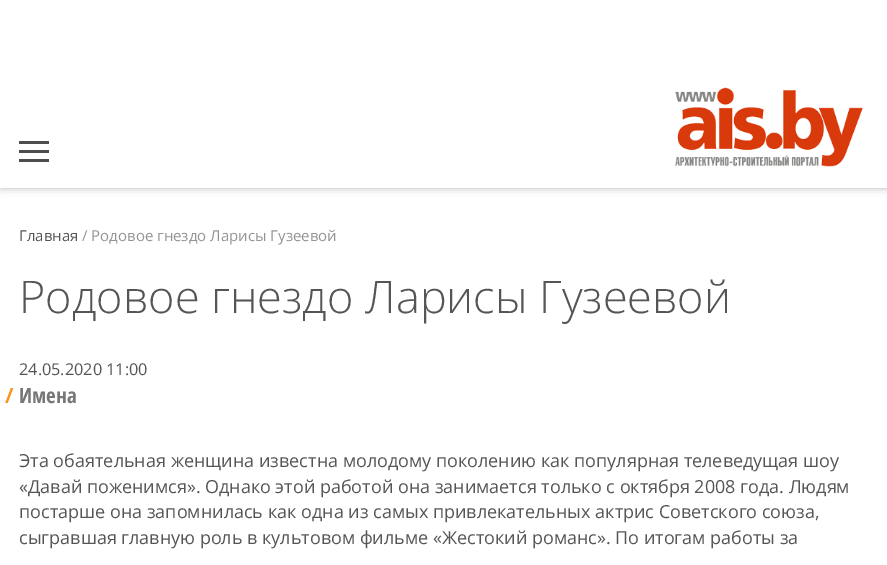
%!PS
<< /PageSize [887 565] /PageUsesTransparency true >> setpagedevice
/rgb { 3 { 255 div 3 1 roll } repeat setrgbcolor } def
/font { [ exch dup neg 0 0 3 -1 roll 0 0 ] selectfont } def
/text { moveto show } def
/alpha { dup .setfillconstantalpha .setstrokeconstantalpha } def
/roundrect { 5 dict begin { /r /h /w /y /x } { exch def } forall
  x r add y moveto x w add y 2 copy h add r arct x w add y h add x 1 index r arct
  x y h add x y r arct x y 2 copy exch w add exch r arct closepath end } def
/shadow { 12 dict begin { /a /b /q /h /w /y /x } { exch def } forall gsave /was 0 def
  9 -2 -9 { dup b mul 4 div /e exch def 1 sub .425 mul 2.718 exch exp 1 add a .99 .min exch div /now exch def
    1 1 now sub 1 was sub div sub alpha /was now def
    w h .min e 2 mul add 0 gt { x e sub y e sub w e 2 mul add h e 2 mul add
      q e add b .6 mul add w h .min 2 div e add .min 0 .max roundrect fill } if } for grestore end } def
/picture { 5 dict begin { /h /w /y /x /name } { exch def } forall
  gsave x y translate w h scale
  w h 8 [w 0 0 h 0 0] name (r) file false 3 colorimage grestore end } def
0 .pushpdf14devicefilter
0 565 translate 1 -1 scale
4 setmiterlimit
255 255 255 rgb
0 0 887 565 rectfill
0 0 0 rgb
1 0 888 188 0 4 0.3 shadow
255 255 255 rgb
0 0 887 188 rectfill
(img_01.rgb) 675 87 188 80 picture
77 77 77 rgb
19 150 30 3 rectfill
19 141 30 3 rectfill
19 159 30 3 rectfill
/OpenSans-Regular 15 font
85 85 85 rgb
(Главная) 19 241 text
148 148 148 rgb
(/ Родовое гнездо Ларисы Гузеевой) 82 241 text
/OpenSans-Light 45 font
85 85 85 rgb
(Родовое гнездо Ларисы Гузеевой) 19 313 text
/OpenSans-Regular 16.25 font
(24.05.2020 11:00) 19 375 text
/OpenSansCondensed-Bold 21 font
247 148 30 rgb
(/) 5 403 text
119 119 119 rgb
(Имена) 19 403 text
/OpenSans-Regular 18 font
85 85 85 rgb
(Эта обаятельная женщина известна молодому поколению как популярная телеведущая шоу) 19 467 text
(«Давай поженимся». Однако этой работой она занимается только с октября 2008 года. Людям) 19 493 text
(постарше она запомнилась как одна из самых привлекательных актрис Советского союза,) 19 518 text
(сыгравшая главную роль в культовом фильме «Жестокий романс». По итогам работы за) 19 544 text
.poppdf14devicefilter showpage
